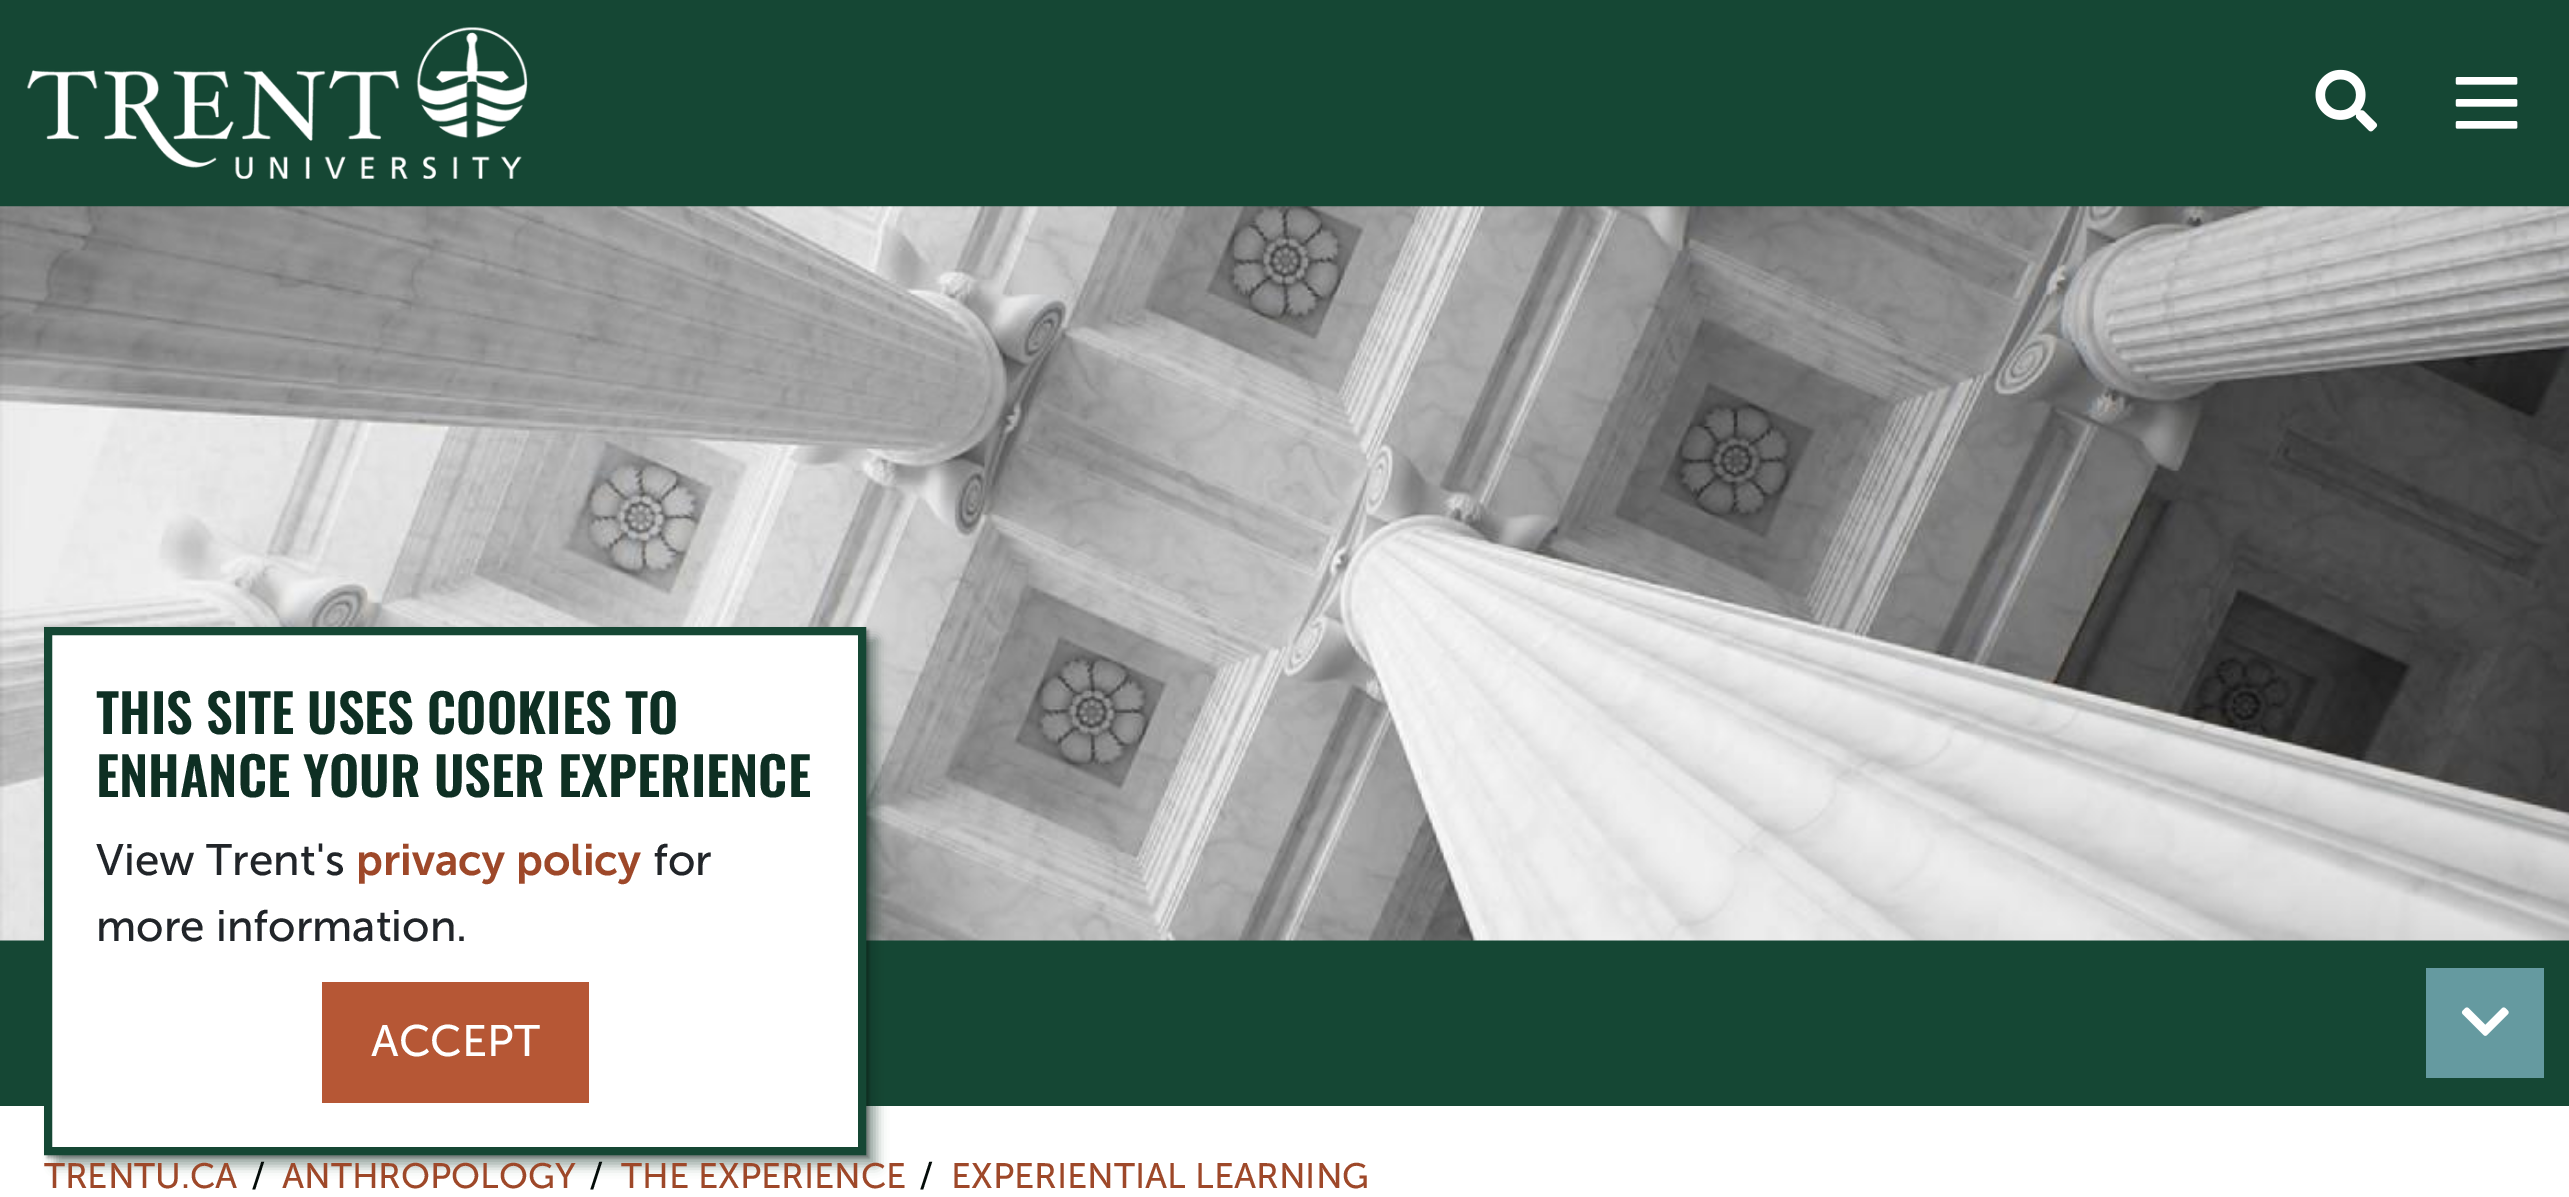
%!PS
<< /PageSize [2569 1197] /PageUsesTransparency true >> setpagedevice
/rgb { 3 { 255 div 3 1 roll } repeat setrgbcolor } def
/font { [ exch dup neg 0 0 3 -1 roll 0 0 ] selectfont } def
/text { moveto show } def
/alpha { dup .setfillconstantalpha .setstrokeconstantalpha } def
/roundrect { 5 dict begin { /r /h /w /y /x } { exch def } forall
  x r add y moveto x w add y 2 copy h add r arct x w add y h add x 1 index r arct
  x y h add x y r arct x y 2 copy exch w add exch r arct closepath end } def
/shadow { 12 dict begin { /a /b /q /h /w /y /x } { exch def } forall gsave /was 0 def
  9 -2 -9 { dup b mul 4 div /e exch def 1 sub .425 mul 2.718 exch exp 1 add a .99 .min exch div /now exch def
    1 1 now sub 1 was sub div sub alpha /was now def
    w h .min e 2 mul add 0 gt { x e sub y e sub w e 2 mul add h e 2 mul add
      q e add b .6 mul add w h .min 2 div e add .min 0 .max roundrect fill } if } for grestore end } def
/picture { 5 dict begin { /h /w /y /x /name } { exch def } forall
  gsave x y translate w h scale
  w h 8 [w 0 0 h 0 0] name (r) file false 3 colorimage grestore end } def
0 .pushpdf14devicefilter
0 1197 translate 1 -1 scale
4 setmiterlimit
255 255 255 rgb
0 0 2569 1197 rectfill
21 71 52 rgb
0 0 2569 1106 rectfill
(img_01.rgb) 0 206 2569 735 picture
14 47 35 rgb
55 638 822 528 0 5.5 0.4 shadow
0 0 0 rgb
47 630 822 528 0 1.5 0.3 shadow
255 255 255 rgb
48 631 moveto 814 0 rlineto 0 520 rlineto -814 0 rlineto closepath gsave fill grestore
21 71 52 rgb
8 setlinewidth
stroke
182 87 53 rgb
322 982 267 121 rectfill
(img_02.rgb) 27 27 501 152 picture
(img_03.rgb) 2315 69 63 63 picture
(img_04.rgb) 2455 77 63 52 picture
101 154 160 rgb
2426 968 118 110 rectfill
(img_05.rgb) 2461 1007 48 29 picture
/Oswald-SemiBold 52.75 font
14 47 35 rgb
(THIS SITE USES COOKIES TO) 96 734 text
(ENHANCE YOUR USER EXPERIENCE) 96 797 text
/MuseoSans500-Regular 44 font
33 37 41 rgb
(View Trent's) 96 875 text
/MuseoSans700-SemiBold 44 font
158 72 41 rgb
(privacy policy) 356 875 text
/MuseoSans500-Regular 44 font
33 37 41 rgb
(for) 653 875 text
(more information.) 96 941 text
255 255 255 rgb
(ACCEPT) 371 1056 text
/MuseoSans500-Regular 35.25 font
158 72 41 rgb
(TRENTU.CA) 44 1188 text
4 12 9 rgb
(/) 251 1188 text
158 72 41 rgb
(ANTHROPOLOGY) 282 1188 text
4 12 9 rgb
(/) 589 1188 text
158 72 41 rgb
(THE EXPERIENCE) 621 1188 text
4 12 9 rgb
(/) 919 1188 text
158 72 41 rgb
(EXPERIENTIAL LEARNING) 951 1188 text
.poppdf14devicefilter showpage
